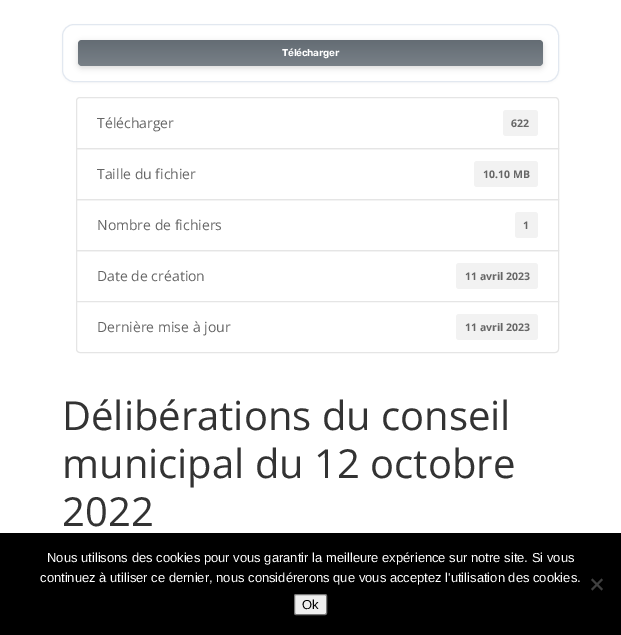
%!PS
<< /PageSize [621 635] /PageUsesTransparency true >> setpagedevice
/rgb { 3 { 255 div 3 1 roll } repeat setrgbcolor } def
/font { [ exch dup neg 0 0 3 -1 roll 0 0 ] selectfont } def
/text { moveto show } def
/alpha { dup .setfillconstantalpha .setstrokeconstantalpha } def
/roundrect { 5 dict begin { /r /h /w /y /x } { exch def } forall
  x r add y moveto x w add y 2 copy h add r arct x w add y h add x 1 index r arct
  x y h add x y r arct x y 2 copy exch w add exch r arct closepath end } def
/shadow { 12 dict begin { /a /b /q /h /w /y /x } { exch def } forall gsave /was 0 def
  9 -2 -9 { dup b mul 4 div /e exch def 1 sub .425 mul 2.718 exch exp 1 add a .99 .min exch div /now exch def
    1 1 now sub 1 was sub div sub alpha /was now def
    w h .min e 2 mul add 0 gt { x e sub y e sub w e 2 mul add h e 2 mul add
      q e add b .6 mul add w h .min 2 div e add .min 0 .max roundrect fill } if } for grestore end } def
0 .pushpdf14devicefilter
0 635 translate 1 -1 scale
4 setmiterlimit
255 255 255 rgb
0 0 621 635 rectfill
0 0 0 rgb
62 25 497 58 12 1.5 0.04 shadow
255 255 255 rgb
62.5 24.5 496 57 11.5 roundrect gsave fill grestore
226 232 240 rgb
stroke
0 0 0 rgb
78 42 465 26 4 3 0.15 shadow
108 117 125 rgb
78 40 465 26 4 roundrect fill
0.08 alpha
gsave 78 40 465 26 4 roundrect clip newpath
<< /ShadingType 2 /ColorSpace /DeviceRGB /Coords [311 40 311 66] /Extend [true true] /Function << /FunctionType 2 /Domain [0 1] /C0 [0 0 0] /C1 [1 1 1] /N 1 >> >> shfill grestore
1 alpha
229 229 229 rgb
80 97.5 moveto 475 0 rlineto 2 0 3.5 1.5 3.5 3.5 rcurveto 0 47.5 rlineto -482 0 rlineto 0 -47.5 rlineto 0 -2 1.5 -3.5 3.5 -3.5 rcurveto closepath stroke
242 242 242 rgb
503 110 35 26 3 roundrect fill
229 229 229 rgb
76.5 148.5 482 51 rectstroke
242 242 242 rgb
474 161 64 26 3 roundrect fill
229 229 229 rgb
76.5 199.5 482 51 rectstroke
242 242 242 rgb
515 212 23 26 3 roundrect fill
229 229 229 rgb
76.5 250.5 482 51 rectstroke
242 242 242 rgb
456 263 82 26 3 roundrect fill
255 255 255 rgb
76.5 301.5 moveto 482 0 rlineto 0 47.5 rlineto 0 2 -1.5 3.5 -3.5 3.5 rcurveto -475 0 rlineto -2 0 -3.5 -1.5 -3.5 -3.5 rcurveto closepath gsave fill grestore
229 229 229 rgb
stroke
242 242 242 rgb
456 314 82 26 3 roundrect fill
0 0 0 rgb
0 533 621 102 rectfill
64 64 64 rgb
601.5 578.5 moveto 1.5 1.5 rlineto -10.5 10.5 rlineto -1.5 -1.5 rlineto closepath fill
591 580 moveto 1.5 -1.5 rlineto 10.5 10.5 rlineto -1.5 1.5 rlineto closepath fill
239 239 239 rgb
294.5 594.5 32 20 1.5 roundrect gsave fill grestore
118 118 118 rgb
stroke
/Rubik-SemiBold 10 font
255 255 255 rgb
282 56 moveto -0.25 0 (Télécharger) ashow
/OpenSans-Regular 14 font
102 102 102 rgb
(Télécharger) 97 128 text
/OpenSans-Bold 10.5 font
(622) 511 127 text
/OpenSans-Regular 14 font
(Taille du fichier) 97 179 text
/OpenSans-Bold 10.5 font
(10.10 MB) 483 178 text
/OpenSans-Regular 14 font
(Nombre de fichiers) 97 230 text
/OpenSans-Bold 10.5 font
(1) 523 229 text
/OpenSans-Regular 14 font
(Date de création) 97 281 text
/OpenSans-Bold 10.5 font
(11 avril 2023) 465 280 text
/OpenSans-Regular 14 font
(Dernière mise à jour) 97 332 text
/OpenSans-Bold 10.5 font
(11 avril 2023) 465 331 text
/OpenSans-Regular 40 font
51 51 51 rgb
(Délibérations du conseil) 62 430 text
(municipal du 12 octobre) 62 478 text
(2022) 62 526 text
/LiberationSans-Regular 13 font
255 255 255 rgb
(Nous utilisons des cookies pour vous garantir la meilleure expérience sur notre site. Si vous) 47 562 text
(continuez à utiliser ce dernier, nous considérerons que vous acceptez l'utilisation des cookies.) 40 582 text
0 0 0 rgb
(Ok) 302 609 text
.poppdf14devicefilter showpage
